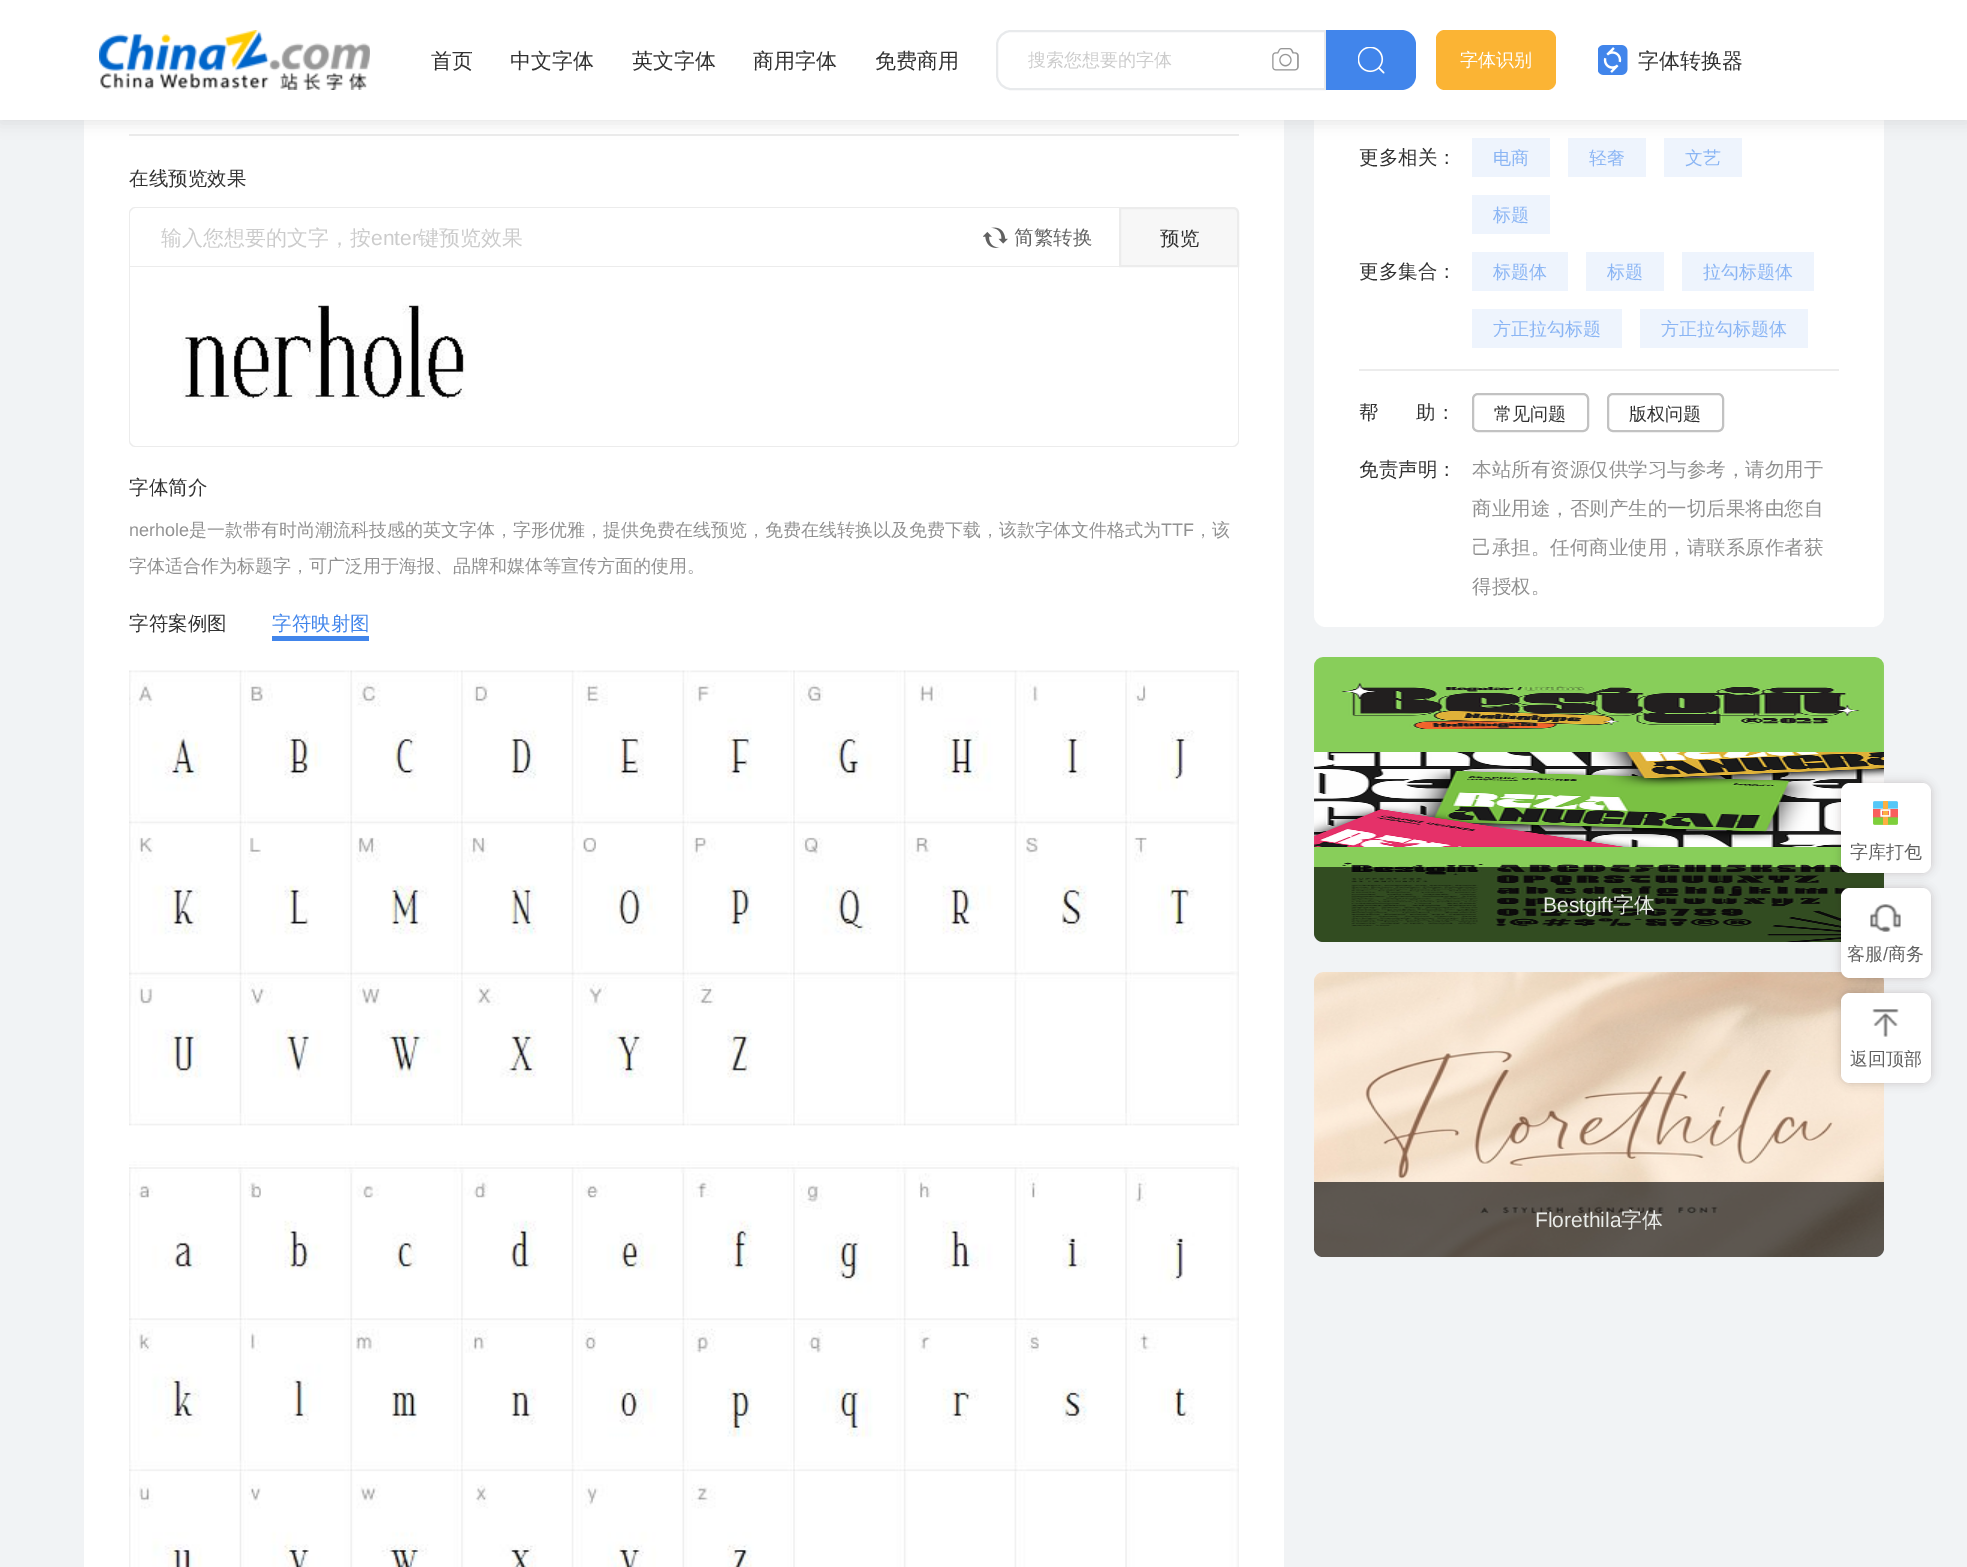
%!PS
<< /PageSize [1967 1567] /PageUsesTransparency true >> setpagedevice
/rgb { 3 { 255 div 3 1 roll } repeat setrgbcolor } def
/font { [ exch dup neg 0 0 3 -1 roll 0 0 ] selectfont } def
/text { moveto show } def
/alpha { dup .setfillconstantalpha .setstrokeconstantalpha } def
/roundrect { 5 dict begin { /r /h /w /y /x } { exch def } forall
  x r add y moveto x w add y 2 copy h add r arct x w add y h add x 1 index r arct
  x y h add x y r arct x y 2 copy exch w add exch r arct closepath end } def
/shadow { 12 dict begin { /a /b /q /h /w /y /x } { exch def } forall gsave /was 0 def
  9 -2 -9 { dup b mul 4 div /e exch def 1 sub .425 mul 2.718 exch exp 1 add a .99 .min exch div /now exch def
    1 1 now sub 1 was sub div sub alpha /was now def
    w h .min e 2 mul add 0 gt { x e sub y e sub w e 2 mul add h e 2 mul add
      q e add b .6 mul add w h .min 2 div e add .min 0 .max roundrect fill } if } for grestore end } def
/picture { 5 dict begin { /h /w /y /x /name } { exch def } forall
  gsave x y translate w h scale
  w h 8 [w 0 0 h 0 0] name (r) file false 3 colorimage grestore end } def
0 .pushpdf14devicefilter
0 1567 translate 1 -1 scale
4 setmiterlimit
241 243 245 rgb
0 0 1967 1567 rectfill
255 255 255 rgb
84 120 1200 1447 rectfill
236 236 236 rgb
129 134 1110 2 rectfill
255 255 255 rgb
1314 -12 570 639 12 roundrect fill
238 244 253 rgb
1472 138 78 39 rectfill
1568 138 78 39 rectfill
1664 138 78 39 rectfill
204 204 204 rgb
0 3 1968 120 0 7.5 0.5 shadow
255 255 255 rgb
0 0 1967 120 rectfill
(img_01.rgb) 99 30 271 60 picture
232 234 236 rgb
2 setlinewidth
1011 31 moveto 314 0 rlineto 0 58 rlineto -314 0 rlineto -7.5 0 -14 -6.5 -14 -14 rcurveto 0 -30 rlineto 0 -7.5 6.5 -14 14 -14 rcurveto closepath stroke
(img_02.rgb) 1272 48 27 23 picture
65 133 235 rgb
1326 30 moveto 75 0 rlineto 8.5 0 15 6.5 15 15 rcurveto 0 30 rlineto 0 8.5 -6.5 15 -15 15 rcurveto -75 0 rlineto closepath fill
(img_03.rgb) 1358 47 27 27 picture
251 180 52 rgb
1436 30 120 60 9 roundrect fill
(img_04.rgb) 1598 45 30 30 picture
236 236 236 rgb
135 207 moveto 984 0 rlineto 0 60 rlineto -990 0 rlineto 0 -54 rlineto 0 -3 3 -6 6 -6 rcurveto closepath 135 208 moveto 984 0 rlineto 0 58 rlineto -989 0 rlineto 0 -53 rlineto 0 -2 3 -5 5 -5 rcurveto closepath eofill
(img_05.rgb) 983 227 25 21 picture
247 247 247 rgb
1120 208 moveto 113 0 rlineto 3 0 5 2 5 5 rcurveto 0 53 rlineto -118 0 rlineto closepath gsave fill grestore
236 236 236 rgb
stroke
129 267 moveto 1110 0 rlineto 0 174 rlineto 0 3 -3 6 -6 6 rcurveto -1098 0 rlineto -3 0 -6 -3 -6 -6 rcurveto closepath 130 267 moveto 1108 0 rlineto 0 174 rlineto 0 2 -3 5 -5 5 rcurveto -1098 0 rlineto -2 0 -5 -3 -5 -5 rcurveto closepath eofill
(img_06.rgb) 181 304 285 96 picture
65 133 235 rgb
272 636 97 5 rectfill
(img_07.rgb) 129 670 1110 897 picture
238 244 253 rgb
1472 195 78 39 rectfill
1472 252 96 39 rectfill
1586 252 78 39 rectfill
1682 252 132 39 rectfill
1472 309 150 39 rectfill
1640 309 168 39 rectfill
236 236 236 rgb
1359 369 480 2 rectfill
194 194 194 rgb
1473 394 115 37 5 roundrect stroke
1608 394 115 37 5 roundrect stroke
(img_08.rgb) 1314 657 570 285 picture
0.63 alpha
0 0 0 rgb
1314 867 moveto 570 0 rlineto 0 66 rlineto 0 5 -4 9 -9 9 rcurveto -552 0 rlineto -5 0 -9 -4 -9 -9 rcurveto closepath fill
1 alpha
(img_09.rgb) 1314 972 570 285 picture
0.63 alpha
1314 1182 moveto 570 0 rlineto 0 66 rlineto 0 5 -4 9 -9 9 rcurveto -552 0 rlineto -5 0 -9 -4 -9 -9 rcurveto closepath fill
1 alpha
32 15 10 rgb
1841 783 90 90 9 4.5 0.2 shadow
255 255 255 rgb
1841 783 90 90 9 roundrect fill
(img_10.rgb) 1873 801 25 24 picture
32 15 10 rgb
1841 888 90 90 9 4.5 0.2 shadow
255 255 255 rgb
1841 888 90 90 9 roundrect fill
(img_11.rgb) 1870 904 31 28 picture
32 15 10 rgb
1841 993 90 90 9 4.5 0.2 shadow
255 255 255 rgb
1841 993 90 90 9 roundrect fill
(img_12.rgb) 1872 1009 27 28 picture
/WenQuanYiZenHei-Medium 21 font
49 49 49 rgb
(首页) 431 68 text
(中文字体) 510 68 text
(英文字体) 632 68 text
(商用字体) 753 68 text
(免费商用) 875 68 text
/WenQuanYiZenHei-Medium 18 font
204 204 204 rgb
(搜索您想要的字体) 1028 66 text
255 255 255 rgb
(字体识别) 1460 66 text
/WenQuanYiZenHei-Medium 21 font
49 49 49 rgb
(字体转换器) 1638 68 text
/WenQuanYiZenHei-Medium 19.5 font
(在线预览效果) 129 185 text
gsave
161 225 808 27 rectclip
/WenQuanYiZenHei-Medium 21 font
204 204 204 rgb
(输入您想要的文字，按) 161 245 text
grestore
/LiberationSans-Regular 21 font
204 204 204 rgb
(enter) 371 245 text
/WenQuanYiZenHei-Medium 21 font
(键预览效果) 418 245 text
/WenQuanYiZenHei-Medium 19.5 font
97 97 97 rgb
(简繁转换) 1014 244 text
49 49 49 rgb
(预览) 1160 245 text
(字体简介) 129 494 text
/LiberationSans-Regular 18 font
145 145 145 rgb
(nerhole) 129 536 text
/WenQuanYiZenHei-Medium 18 font
(是一款带有时尚潮流科技感的英文字体，字形优雅，提供免费在线预览，免费在线转换以及免费下载，该款字体文件格式为) 189 536 text
/LiberationSans-Regular 18 font
(TTF) 1161 536 text
/WenQuanYiZenHei-Medium 18 font
(，该) 1194 536 text
(字体适合作为标题字，可广泛用于海报、品牌和媒体等宣传方面的使用。) 129 572 text
/WenQuanYiZenHei-Medium 19.5 font
49 49 49 rgb
(字符案例图) 129 630 text
65 133 235 rgb
(字符映射图) 272 630 text
49 49 49 rgb
(更多相关：) 1359 164 text
/WenQuanYiZenHei-Medium 18 font
138 181 244 rgb
(电商) 1493 164 text
(轻奢) 1589 164 text
(文艺) 1685 164 text
(标题) 1493 221 text
/WenQuanYiZenHei-Medium 19.5 font
49 49 49 rgb
(更多集合：) 1359 278 text
/WenQuanYiZenHei-Medium 18 font
138 181 244 rgb
(标题体) 1493 278 text
(标题) 1607 278 text
(拉勾标题体) 1703 278 text
(方正拉勾标题) 1493 335 text
(方正拉勾标题体) 1661 335 text
/WenQuanYiZenHei-Medium 19.5 font
49 49 49 rgb
(帮) 1359 419 text
(助：) 1416 419 text
/WenQuanYiZenHei-Medium 18 font
(常见问题) 1494 420 text
(版权问题) 1629 420 text
/WenQuanYiZenHei-Medium 19.5 font
(免责声明：) 1359 476 text
145 145 145 rgb
(本站所有资源仅供学习与参考，请勿用于) 1472 476 text
(商业用途，否则产生的一切后果将由您自) 1472 515 text
(己承担。任何商业使用，请联系原作者获) 1472 554 text
(得授权。) 1472 593 text
/LiberationSans-Regular 21 font
233 235 232 rgb
(Bestgift) 1543 912 text
/WenQuanYiZenHei-Medium 21 font
(字体) 1613 912 text
/LiberationSans-Regular 21 font
(Florethila) 1535 1227 text
/WenQuanYiZenHei-Medium 21 font
(字体) 1621 1227 text
/WenQuanYiZenHei-Medium 18 font
97 97 97 rgb
(字库打包) 1850 858 text
(客服) 1847 960 text
/LiberationSans-Regular 18 font
(/) 1883 960 text
/WenQuanYiZenHei-Medium 18 font
(商务) 1888 960 text
(返回顶部) 1850 1065 text
.poppdf14devicefilter showpage
